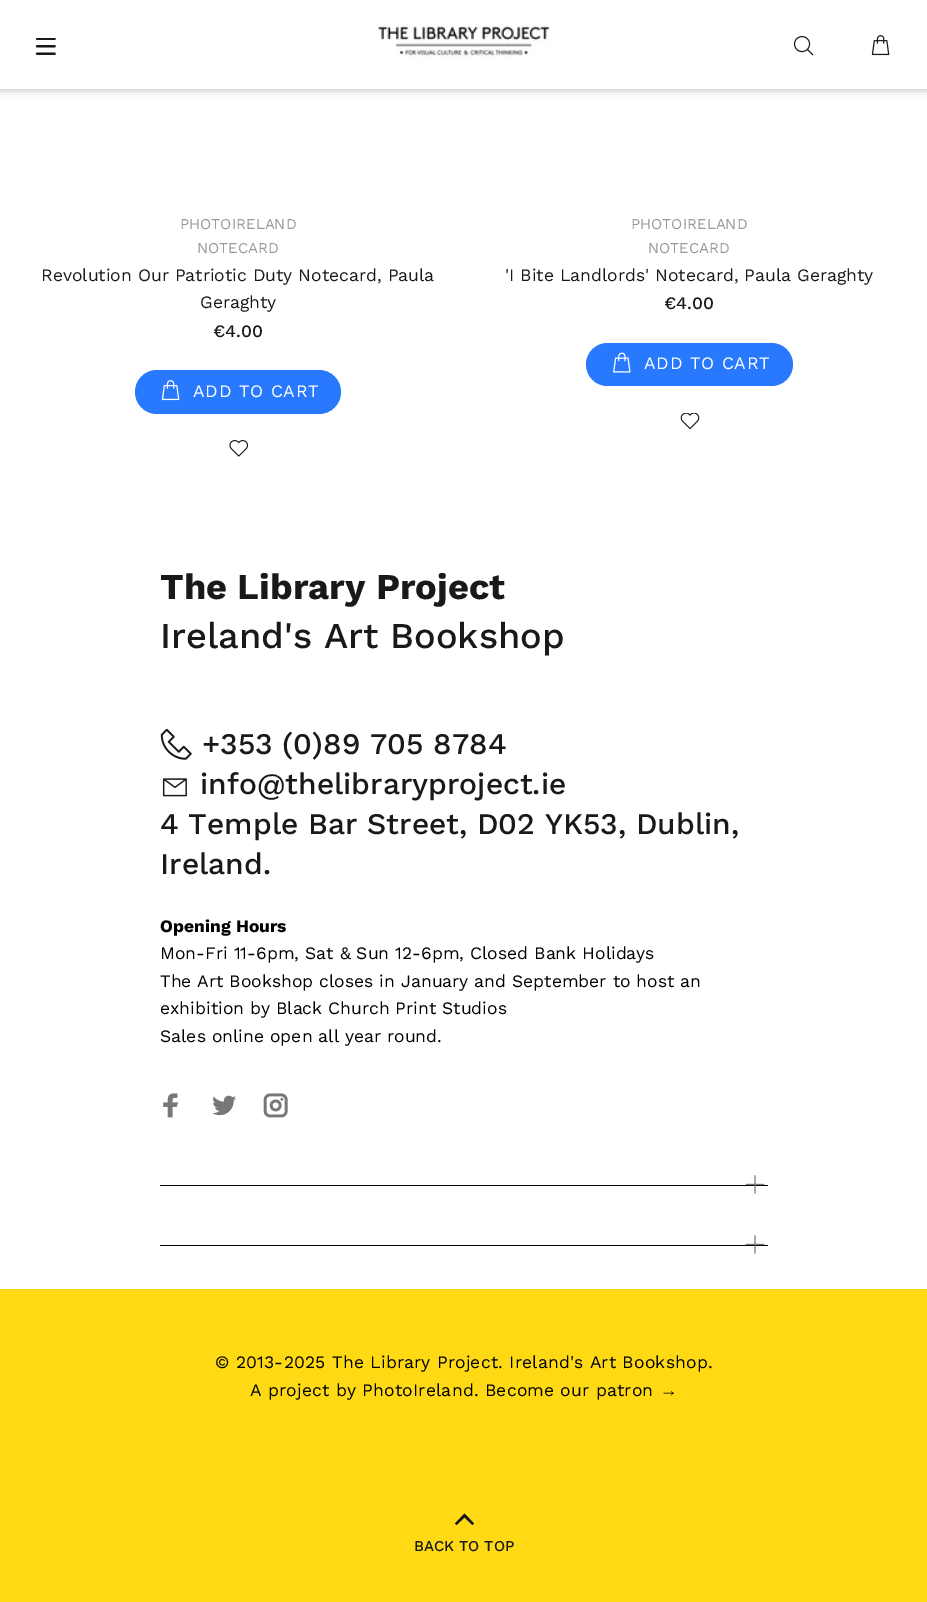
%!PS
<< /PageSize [927 1602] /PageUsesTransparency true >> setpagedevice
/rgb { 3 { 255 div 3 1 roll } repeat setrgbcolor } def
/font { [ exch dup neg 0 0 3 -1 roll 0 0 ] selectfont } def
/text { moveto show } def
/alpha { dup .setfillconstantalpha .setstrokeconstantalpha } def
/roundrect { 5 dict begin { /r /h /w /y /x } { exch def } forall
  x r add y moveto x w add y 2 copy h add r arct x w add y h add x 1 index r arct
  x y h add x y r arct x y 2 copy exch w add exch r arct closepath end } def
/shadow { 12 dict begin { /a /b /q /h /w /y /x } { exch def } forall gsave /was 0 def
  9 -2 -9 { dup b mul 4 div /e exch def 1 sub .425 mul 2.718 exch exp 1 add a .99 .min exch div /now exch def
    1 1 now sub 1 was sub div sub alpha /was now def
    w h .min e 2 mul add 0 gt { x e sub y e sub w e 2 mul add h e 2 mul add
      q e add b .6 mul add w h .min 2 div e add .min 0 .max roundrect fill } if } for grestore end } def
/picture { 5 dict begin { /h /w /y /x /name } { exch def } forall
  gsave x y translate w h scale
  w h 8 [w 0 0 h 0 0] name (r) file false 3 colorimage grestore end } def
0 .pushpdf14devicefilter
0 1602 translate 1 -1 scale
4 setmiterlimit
255 255 255 rgb
0 0 927 1602 rectfill
0 0 0 rgb
0 0 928 89 0 5 0.3 shadow
255 255 255 rgb
0 0 927 89 rectfill
(img_01.rgb) 35 38 21 17 picture
(img_02.rgb) 377 24 173 35 picture
(img_03.rgb) 793 35 21 21 picture
(img_04.rgb) 871 35 19 21 picture
40 121 254 rgb
135 370 206 44 22 roundrect fill
(img_05.rgb) 161 380 19 21 picture
(img_06.rgb) 229 440 20 17 picture
586 343 207 43 21.5 roundrect fill
(img_07.rgb) 613 352 18 21 picture
(img_08.rgb) 680 413 20 17 picture
(img_09.rgb) 160 729 32 31 picture
(img_10.rgb) 162 778 25 19 picture
(img_11.rgb) 163 1093 16 25 picture
(img_12.rgb) 212 1095 24 21 picture
(img_13.rgb) 263 1093 25 25 picture
0 0 0 rgb
160 1185 608 1 rectfill
(img_14.rgb) 745 1175 20 19 picture
160 1245 608 1 rectfill
(img_14.rgb) 745 1235 20 19 picture
255 218 20 rgb
0 1289 927 313 rectfill
25 25 25 rgb
472.5 1525 moveto -8 -7.5 rlineto -8 7.5 rlineto -1.5 -1.5 rlineto 9.5 -10 rlineto 9.5 10 rlineto closepath fill
/WorkSans-Regular 15 font
153 153 153 rgb
(PHOTOIRELAND) 180 229 text
(NOTECARD) 197 253 text
/WorkSans-Regular 17.5 font
25 25 25 rgb
(Revolution Our Patriotic Duty Notecard, Paula) 41 281 text
(Geraghty) 200 308 text
/WorkSans-Medium 17.5 font
(€4.00) 213 337 text
/WorkSans-Regular 17.5 font
255 255 255 rgb
193 397 moveto 0.75 0 (ADD TO CART) ashow
/WorkSans-Regular 15 font
153 153 153 rgb
(PHOTOIRELAND) 631 229 text
(NOTECARD) 648 253 text
/WorkSans-Regular 17.5 font
25 25 25 rgb
('I Bite Landlords' Notecard, Paula Geraghty) 505 281 text
/WorkSans-Medium 17.5 font
(€4.00) 664 309 text
/WorkSans-Regular 17.5 font
255 255 255 rgb
644 369 moveto 0.75 0 (ADD TO CART) ashow
/WorkSans-Bold 36.25 font
25 25 25 rgb
(The Library Project) 160 599 text
/WorkSans-Medium 36.25 font
(Ireland's Art Bookshop) 160 648 text
/WorkSans-Medium 30 font
(+353 \(0\)89 705 8784) 202 754 text
(info@thelibraryproject.ie) 200 794 text
(4 Temple Bar Street, D02 YK53, Dublin,) 160 834 text
(Ireland.) 160 874 text
/WorkSans-Bold 17.5 font
0 0 0 rgb
(Opening Hours) 160 932 text
/WorkSans-Regular 17.5 font
(Mon-Fri 11-6pm, Sat & Sun 12-6pm, Closed Bank Holidays) 160 959 text
(The Art Bookshop closes in January and September to host an) 160 987 text
(exhibition by Black Church Print Studios) 160 1014 text
(Sales online open all year round.) 160 1042 text
215 1368 moveto 0.18 0 (© 2013-2025 The Library Project. Ireland's Art Bookshop.) ashow
250 1396 moveto 0.18 0 (A project by PhotoIreland. Become our patron) ashow
/LiberationSans-Regular 17.5 font
660 1396 moveto 0.18 0 (→) ashow
/WorkSans-Medium 15 font
25 25 25 rgb
(BACK TO TOP) 414 1551 text
.poppdf14devicefilter showpage
